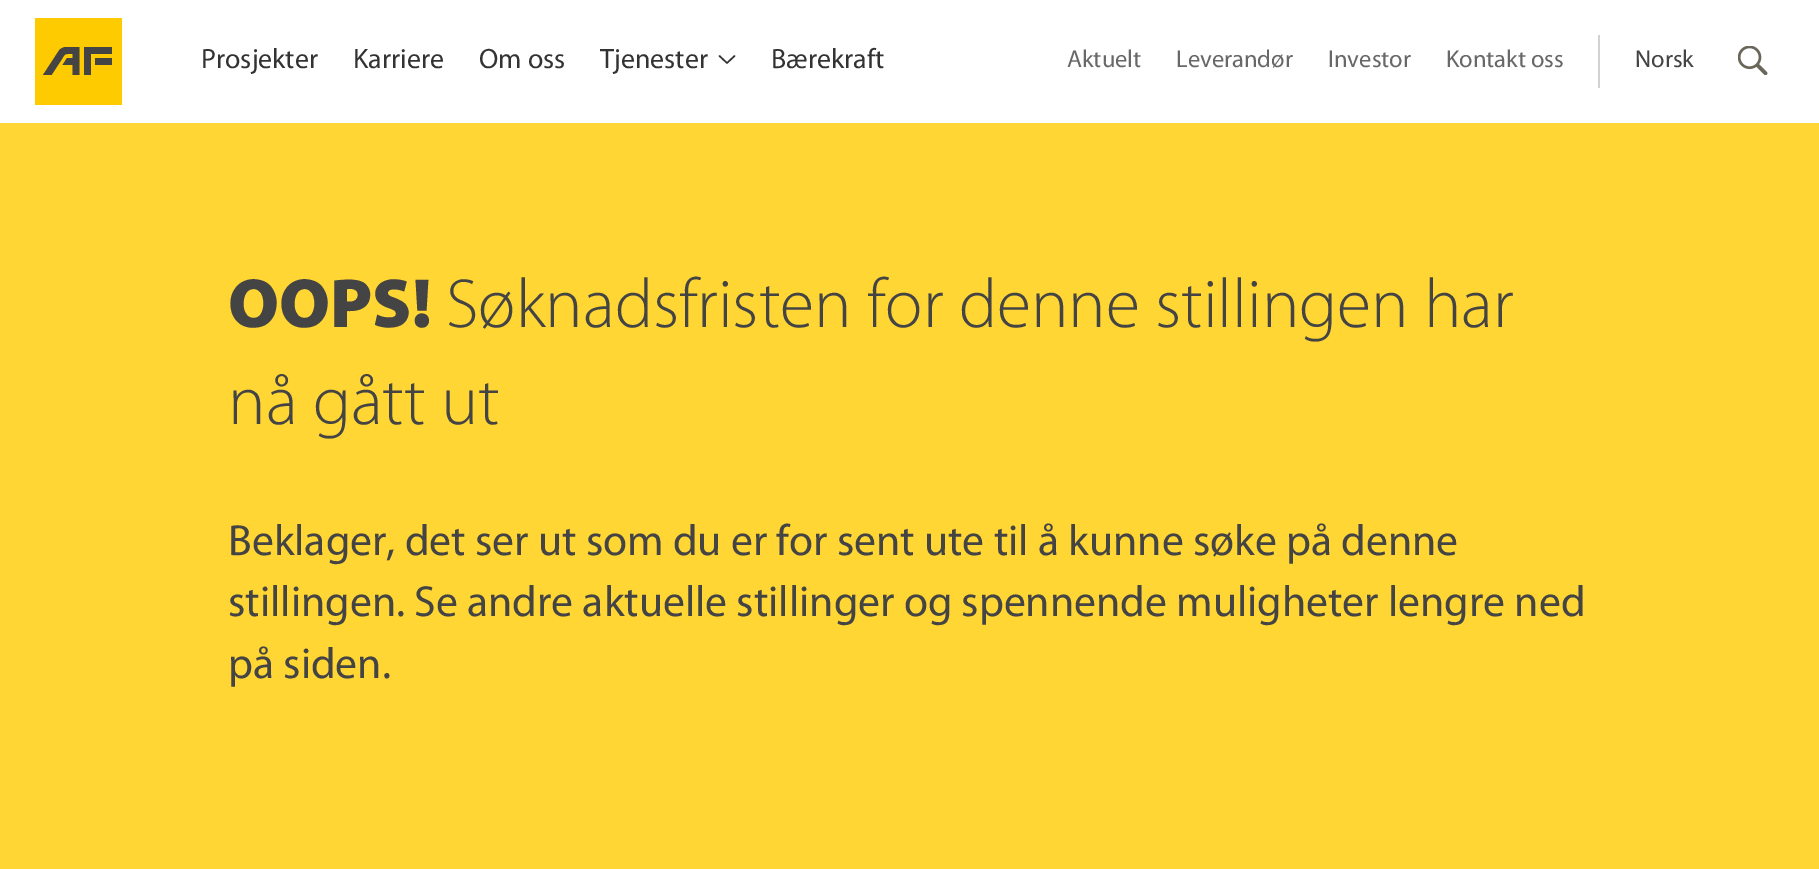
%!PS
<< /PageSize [1819 869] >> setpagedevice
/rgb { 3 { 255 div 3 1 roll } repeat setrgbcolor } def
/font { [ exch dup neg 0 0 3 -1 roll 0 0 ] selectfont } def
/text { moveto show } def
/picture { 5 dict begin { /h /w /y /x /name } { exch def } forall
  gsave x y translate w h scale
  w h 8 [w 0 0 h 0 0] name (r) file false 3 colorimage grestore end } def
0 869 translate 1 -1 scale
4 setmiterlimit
255 255 255 rgb
0 0 1819 869 rectfill
254 203 0 rgb
35 18 87 87 rectfill
68 68 68 rgb
66 47 moveto -2.5 0 -5.5 1.5 -7 3.5 rcurveto -16 24.5 rlineto 8.5 0 rlineto 8.5 -13 rlineto 6 -9 3 -8 12.5 -8 rcurveto 0 4 rlineto -5.5 0 rlineto -4.5 7 rlineto 10 0 rlineto 0 10 rlineto 7 0 rlineto 0 -28 rlineto closepath fill
112 47 moveto -28 0 rlineto 0 28 rlineto 7 0 rlineto 0 -21 rlineto 21 0 rlineto closepath fill
95 58 17 7 rectfill
51 51 51 rgb
1.5 setlinewidth
1 setlinecap
1 setlinejoin
734.5 56 moveto -7.5 7 rlineto -7.5 -7 rlineto stroke
210 210 210 rgb
1598 35 2 53 rectfill
(img_01.rgb) 1738 46 30 29 picture
255 214 51 rgb
0 123 1819 746 rectfill
/Myriad-Regular 28 font
51 51 51 rgb
(Prosjekter) 201 68 text
(Karriere) 353 68 text
(Om oss) 479 68 text
(Tjenester) 600 68 text
(Bærekraft) 771 68 text
/Myriad-Regular 24.5 font
104 104 104 rgb
(Aktuelt) 1067 67 text
(Leverandør) 1176 67 text
(Investor) 1328 67 text
(Kontakt oss) 1446 67 text
68 68 68 rgb
(Norsk) 1635 67 text
/Myriad-Black 70 font
(OOPS!) 228 327 text
/Myriad-Light 70 font
(Søknadsfristen for denne stillingen har) 446 327 text
(nå gått ut) 228 424 text
/Myriad-Regular 43.75 font
(Beklager, det ser ut som du er for sent ute til å kunne søke på denne) 228 555 text
(stillingen. Se andre aktuelle stillinger og spennende muligheter lengre ned) 228 616 text
(på siden.) 228 678 text
showpage
